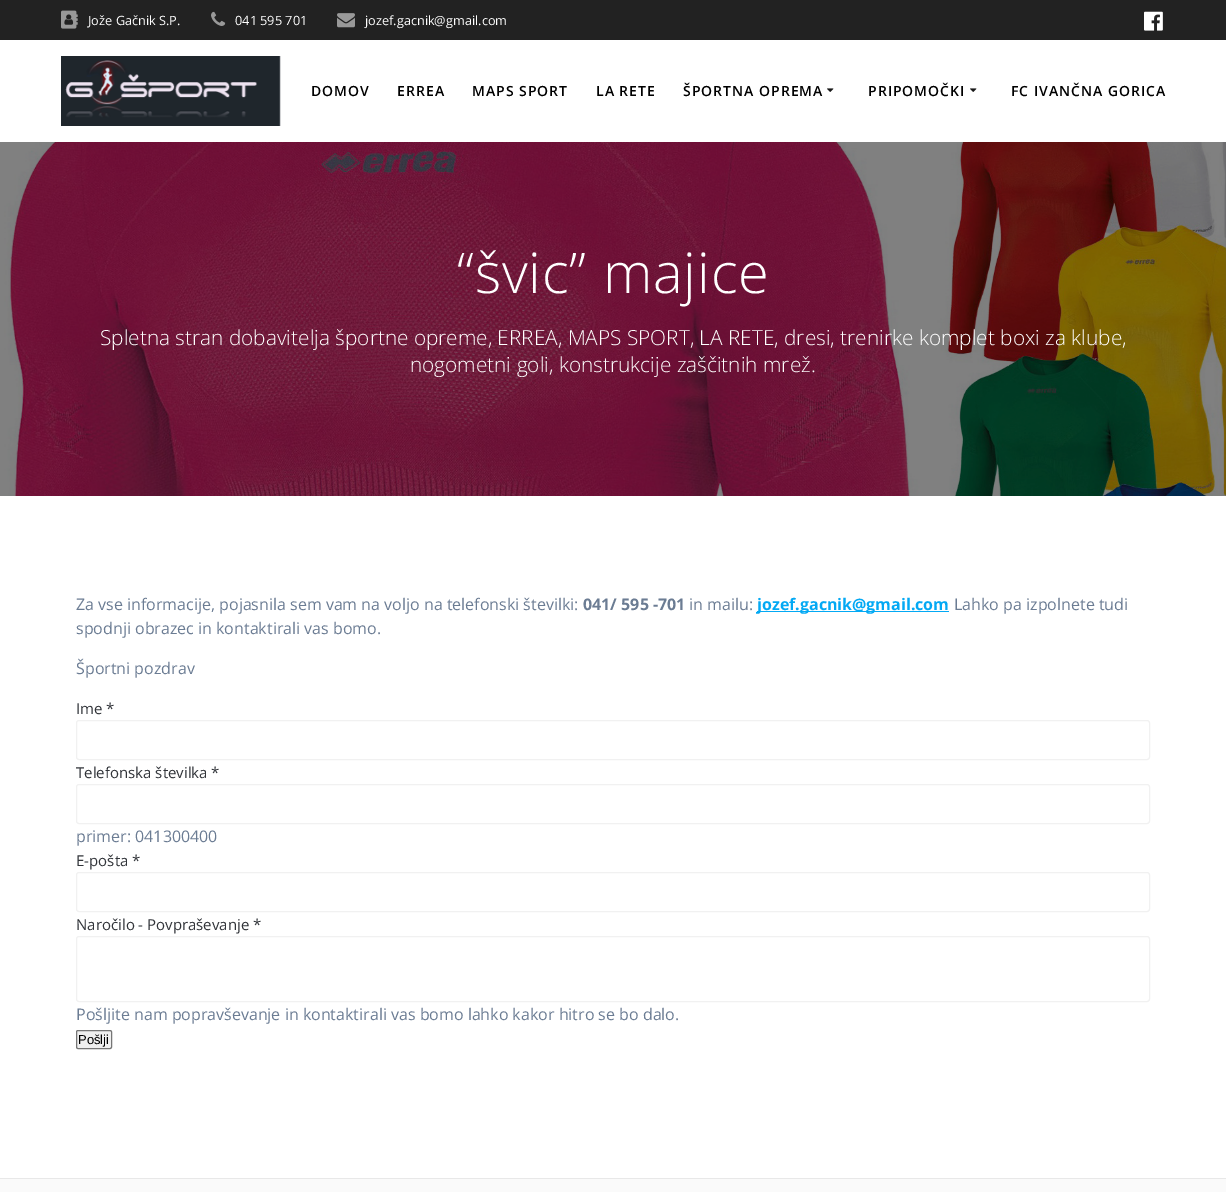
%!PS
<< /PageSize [1226 1192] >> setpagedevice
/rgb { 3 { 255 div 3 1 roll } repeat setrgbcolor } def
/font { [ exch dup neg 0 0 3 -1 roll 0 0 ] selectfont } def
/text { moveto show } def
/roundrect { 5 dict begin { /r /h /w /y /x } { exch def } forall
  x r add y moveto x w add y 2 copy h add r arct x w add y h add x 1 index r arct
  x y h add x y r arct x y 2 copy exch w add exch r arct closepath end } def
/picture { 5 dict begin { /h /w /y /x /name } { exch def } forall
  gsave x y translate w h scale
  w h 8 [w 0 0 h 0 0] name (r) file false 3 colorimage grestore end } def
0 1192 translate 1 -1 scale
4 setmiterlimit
255 255 255 rgb
0 0 1226 1192 rectfill
34 34 34 rgb
0 0 1226 40 rectfill
(img_01.rgb) 61 10 17 19 picture
(img_02.rgb) 211 11 15 15 picture
(img_03.rgb) 337 13 18 15 picture
(img_04.rgb) 1144 11 19 20 picture
(img_05.rgb) 61 56 220 70 picture
(img_06.rgb) 827 88 7 4 picture
(img_06.rgb) 970 88 7 4 picture
(img_07.rgb) 0 142 1226 354 picture
3 169 244 rgb
757 611 192 1 rectfill
241 241 241 rgb
76.5 720.5 1073 39 2.5 roundrect stroke
76.5 784.5 1073 39 2.5 roundrect stroke
76.5 872.5 1073 39 2.5 roundrect stroke
76.5 936.5 1073 65 2.5 roundrect stroke
239 239 239 rgb
76.5 1030.5 35 18 1.5 roundrect gsave fill grestore
118 118 118 rgb
stroke
250 250 250 rgb
0 1179 1226 13 rectfill
232 232 232 rgb
0 1178 1226 1 rectfill
/OpenSans-Regular 12.75 font
255 255 255 rgb
(Jože Gačnik S.P.) 88 25 text
(041 595 701) 235 25 text
(jozef.gacnik@gmail.com) 365 25 text
/OpenSans-SemiBold 14 font
0 0 0 rgb
311 96 moveto 1 0 (DOMOV) ashow
397 96 moveto 1 0 (ERREA) ashow
472 96 moveto 1 0 (MAPS SPORT) ashow
596 96 moveto 1 0 (LA RETE) ashow
683 96 moveto 1 0 (ŠPORTNA OPREMA) ashow
868 96 moveto 1 0 (PRIPOMOČKI) ashow
1011 96 moveto 1 0 (FC IVANČNA GORICA) ashow
/OpenSans-Light 56 font
255 255 255 rgb
457 293 moveto 0.9 0 (“švic” majice) ashow
/OpenSans-Light 20.8 font
(Spletna stran dobavitelja športne opreme, ERREA, MAPS SPORT, LA RETE, dresi, trenirke komplet boxi za klube,) 100 345 text
(nogometni goli, konstrukcije zaščitnih mrež.) 410 372 text
/OpenSans-Regular 16 font
107 124 147 rgb
(Za vse informacije, pojasnila sem vam na voljo na telefonski številki:) 76 610 text
/OpenSans-Bold 16 font
(041/ 595 -701) 583 610 text
/OpenSans-Regular 16 font
(in mailu:) 689 610 text
/OpenSans-Bold 16 font
3 169 244 rgb
(jozef.gacnik@gmail.com) 757 610 text
/OpenSans-Regular 16 font
107 124 147 rgb
(Lahko pa izpolnete tudi) 954 610 text
(spodnji obrazec in kontaktirali vas bomo.) 76 634 text
(Športni pozdrav) 76 674 text
/OpenSans-Regular 15 font
49 52 57 rgb
(Ime *) 76 714 text
(Telefonska številka *) 76 778 text
/OpenSans-Regular 16 font
107 124 147 rgb
(primer: 041300400) 76 842 text
/OpenSans-Regular 15 font
49 52 57 rgb
(E-pošta *) 76 866 text
(Naročilo - Povpraševanje *) 76 930 text
/OpenSans-Regular 16 font
107 124 147 rgb
(Pošljite nam popravševanje in kontaktirali vas bomo lahko kakor hitro se bo dalo.) 76 1020 text
/LiberationSans-Regular 13 font
0 0 0 rgb
(Pošlji) 78 1044 text
showpage
